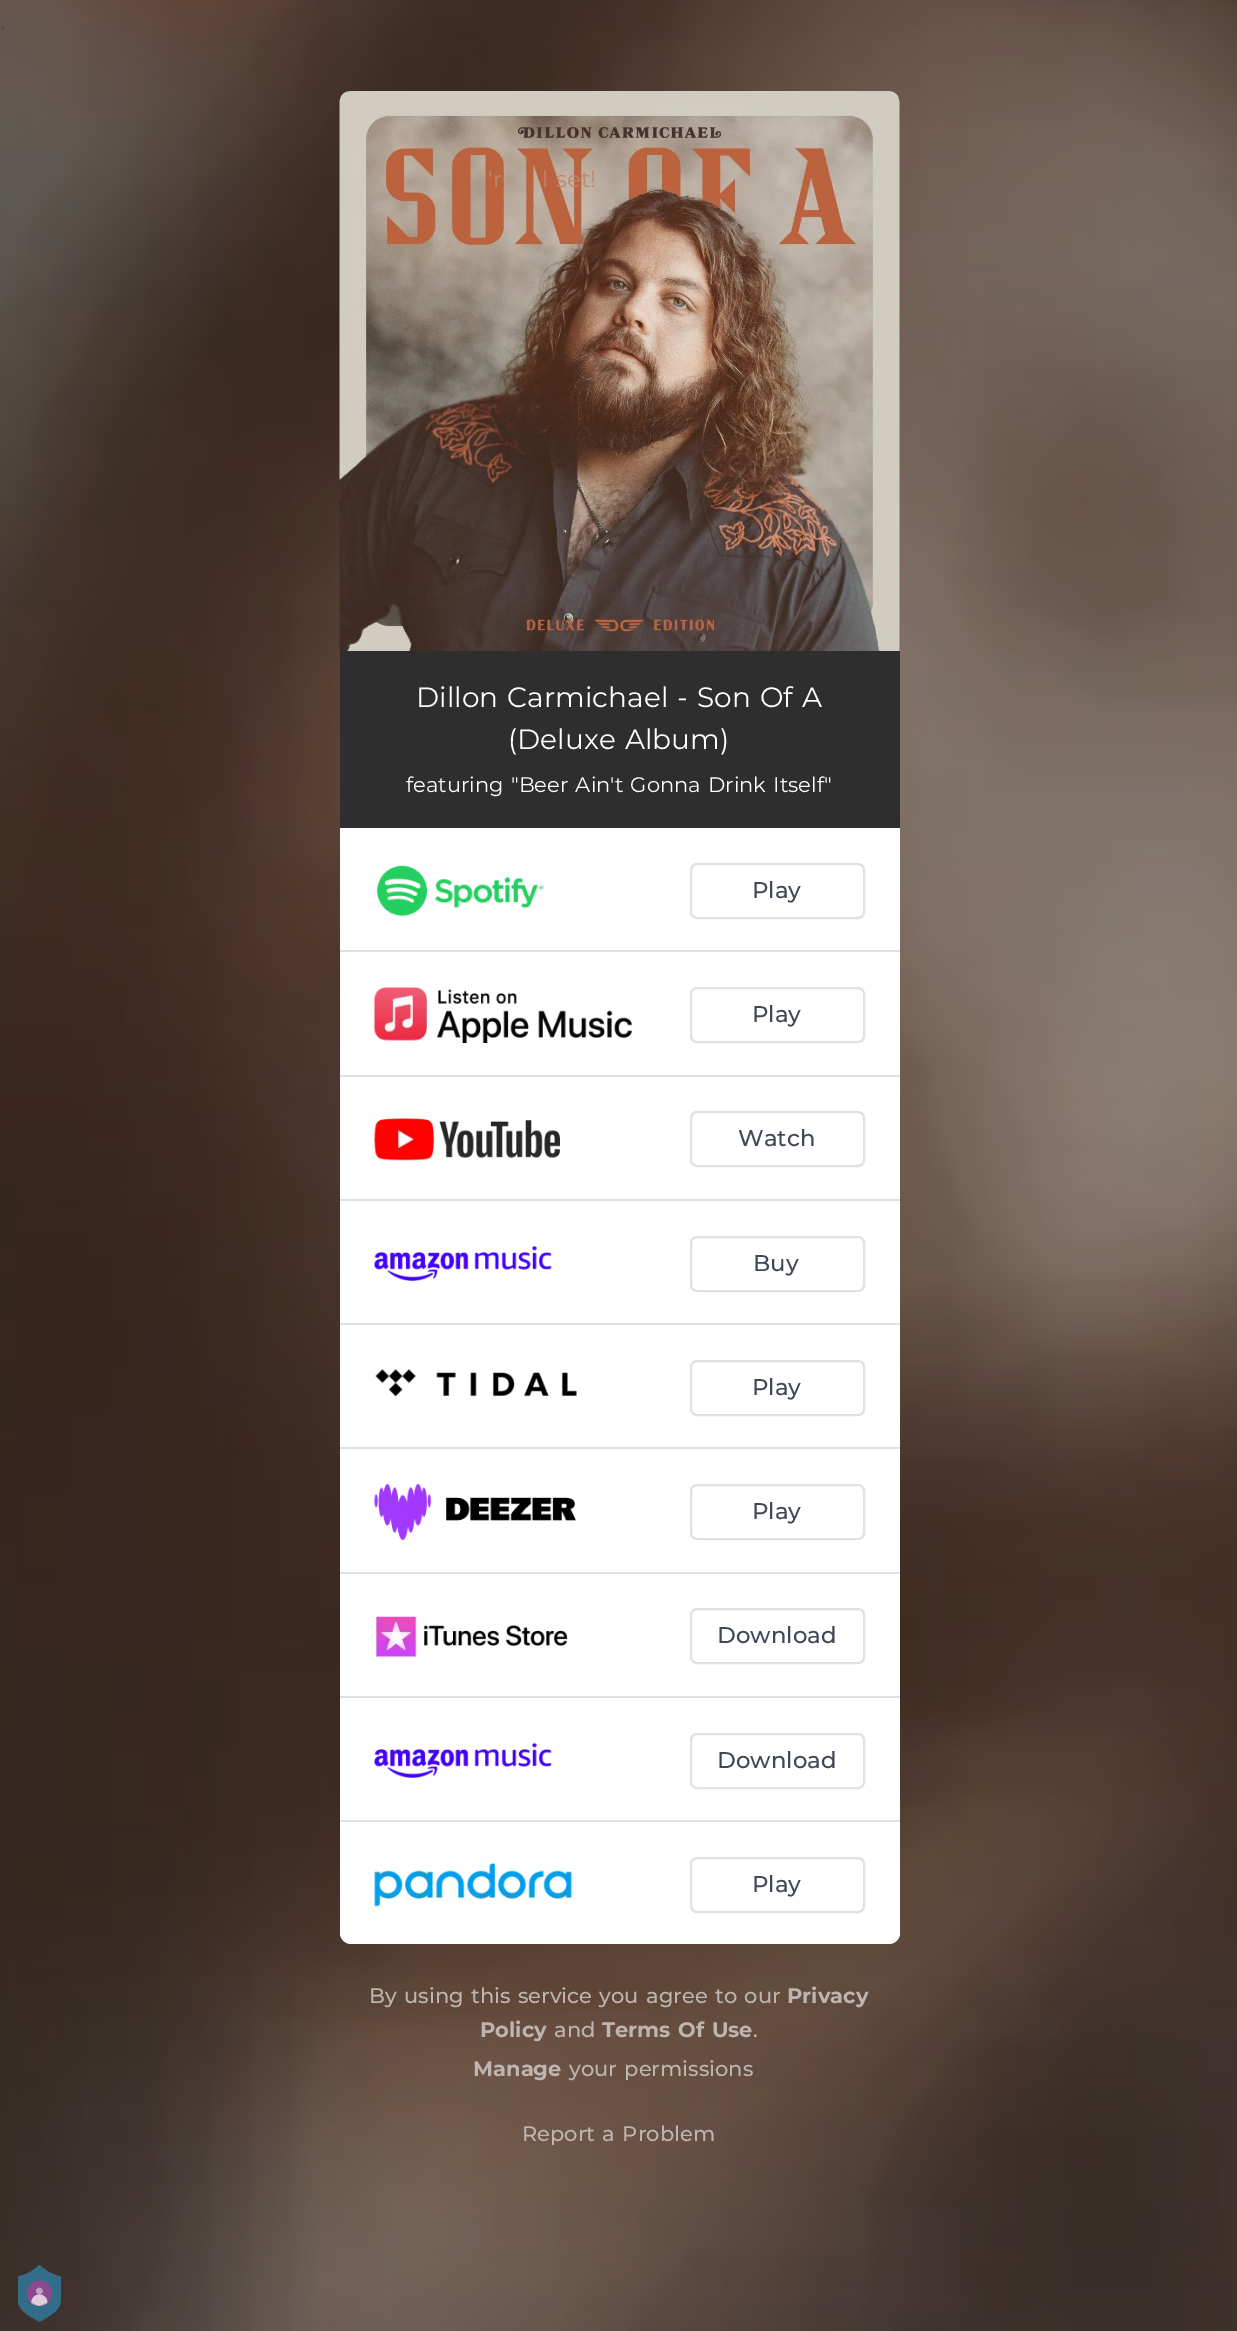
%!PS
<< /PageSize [1237 2331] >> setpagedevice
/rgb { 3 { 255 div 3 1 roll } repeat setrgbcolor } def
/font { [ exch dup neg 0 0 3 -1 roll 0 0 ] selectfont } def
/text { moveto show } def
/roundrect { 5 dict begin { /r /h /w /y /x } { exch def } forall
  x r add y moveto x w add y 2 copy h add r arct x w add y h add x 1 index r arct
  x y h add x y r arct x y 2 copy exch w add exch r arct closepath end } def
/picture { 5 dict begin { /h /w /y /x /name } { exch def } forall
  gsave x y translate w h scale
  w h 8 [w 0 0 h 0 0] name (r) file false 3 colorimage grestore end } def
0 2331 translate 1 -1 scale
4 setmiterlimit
255 255 255 rgb
0 0 1237 2331 rectfill
(img_01.rgb) 0 0 1237 2331 picture
(img_02.rgb) 339 91 561 560 picture
46 46 46 rgb
340 651 560 177 rectfill
255 255 255 rgb
340 828 moveto 560 0 rlineto 0 1105 rlineto 0 6 -5 11 -11 11 rcurveto -538 0 rlineto -6 0 -11 -5 -11 -11 rcurveto closepath fill
225 225 228 rgb
340 950 560 2 rectfill
(img_03.rgb) 376 865 169 52 picture
2 setlinewidth
691 864 173 54 6 roundrect stroke
340 1075 560 2 rectfill
(img_04.rgb) 374 987 258 56 picture
691 988 173 54 6 roundrect stroke
340 1199 560 2 rectfill
(img_05.rgb) 374 1118 186 43 picture
691 1112 173 54 6 roundrect stroke
340 1323 560 2 rectfill
(img_06.rgb) 374 1246 178 35 picture
691 1237 173 54 6 roundrect stroke
340 1447 560 2 rectfill
(img_07.rgb) 375 1369 202 28 picture
691 1361 173 54 6 roundrect stroke
340 1572 560 2 rectfill
(img_08.rgb) 374 1484 202 56 picture
691 1485 173 54 6 roundrect stroke
340 1696 560 2 rectfill
(img_09.rgb) 376 1616 192 42 picture
691 1609 173 54 6 roundrect stroke
340 1820 560 2 rectfill
(img_06.rgb) 374 1743 178 35 picture
691 1734 173 54 6 roundrect stroke
(img_10.rgb) 374 1863 200 44 picture
691 1858 173 54 6 roundrect stroke
(img_11.rgb) 18 2265 43 57 picture
/Montserrat-Regular 22.75 font
186 138 113 rgb
488 187 moveto 1.75 0 32 ('r) widthshow
542 187 moveto 1.75 0 32 (l set!) widthshow
/Montserrat-Regular 28 font
255 255 255 rgb
416 707 moveto 1.75 0 32 (Dillon Carmichael - Son Of A) widthshow
508 749 moveto 1.75 0 32 (\(Deluxe Album\)) widthshow
/Montserrat-Regular 21 font
406 792 moveto 1.75 0 32 (featuring "Beer Ain't Gonna Drink Itself") widthshow
/Montserrat-Medium 22.75 font
65 71 84 rgb
(Play) 752 898 text
(Play) 752 1022 text
(Watch) 738 1146 text
(Buy) 753 1271 text
(Play) 752 1395 text
(Play) 752 1519 text
(Download) 717 1643 text
(Download) 717 1768 text
(Play) 752 1892 text
/Montserrat-Medium 21 font
191 181 176 rgb
369 2003 moveto 1.75 0 32 (By using this service you agree to our) widthshow
/Montserrat-Bold 21 font
(Privacy) 787 2003 text
(Policy) 480 2037 text
/Montserrat-Medium 21 font
(and) 554 2037 text
/Montserrat-Bold 21 font
602 2037 moveto 1.75 0 32 (Terms Of Use) widthshow
/Montserrat-Medium 21 font
(.) 753 2037 text
/Montserrat-Bold 21 font
(Manage) 473 2076 text
/Montserrat-Medium 21 font
569 2076 moveto 1.75 0 32 (your permissions) widthshow
522 2141 moveto 1.75 0 32 (Report a Problem) widthshow
showpage
